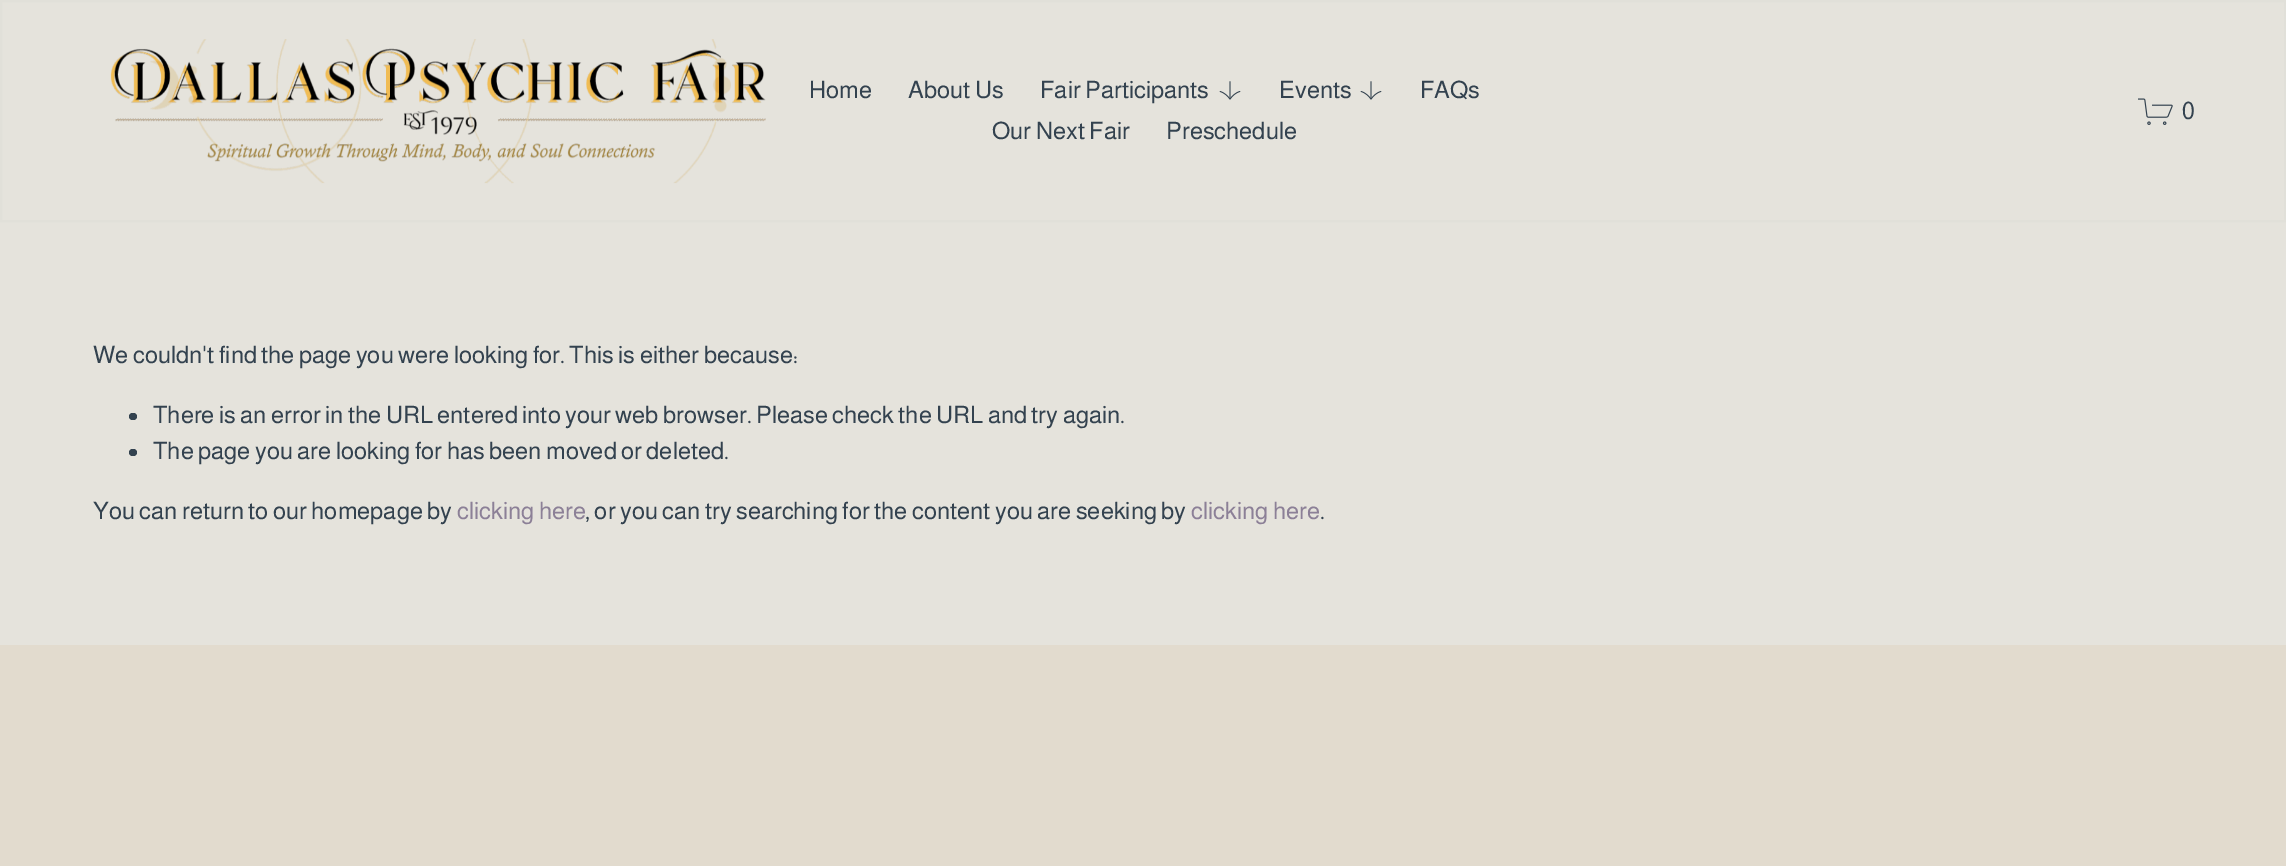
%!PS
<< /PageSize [2286 866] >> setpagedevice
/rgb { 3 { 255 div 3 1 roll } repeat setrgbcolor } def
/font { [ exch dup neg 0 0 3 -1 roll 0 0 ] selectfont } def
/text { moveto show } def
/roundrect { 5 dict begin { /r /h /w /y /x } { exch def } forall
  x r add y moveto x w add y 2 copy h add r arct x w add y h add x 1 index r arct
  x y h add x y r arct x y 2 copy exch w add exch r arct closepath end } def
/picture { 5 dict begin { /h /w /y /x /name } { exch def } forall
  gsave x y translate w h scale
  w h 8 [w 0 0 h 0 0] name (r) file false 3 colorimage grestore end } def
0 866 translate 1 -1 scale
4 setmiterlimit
229 227 220 rgb
0 0 2286 866 rectfill
225 224 217 rgb
2 setlinewidth
1 1 2284 220 rectstroke
(img_01.rgb) 110 39 656 145 picture
(img_02.rgb) 1219 81 22 19 picture
(img_02.rgb) 1360 81 22 19 picture
(img_03.rgb) 2138 98 35 27 picture
51 66 79 rgb
129 413 8 7 3.5 roundrect fill
129 449 8 7 3.5 roundrect fill
226 219 206 rgb
0 645 2286 221 rectfill
/Almarai-Regular 24 font
51 66 79 rgb
(Home) 809 98 text
(About Us) 908 98 text
(Fair Participants) 1040 98 text
(Events) 1279 98 text
(FAQs) 1420 98 text
(Our Next Fair) 992 139 text
(Preschedule) 1166 139 text
(0) 2182 119 text
(We couldn't find the page you were looking for. This is either because:) 93 363 text
(There is an error in the URL entered into your web browser. Please check the URL and try again.) 153 423 text
(The page you are looking for has been moved or deleted.) 153 459 text
(You can return to our homepage by) 93 519 text
140 128 151 rgb
(clicking here) 457 519 text
51 66 79 rgb
(, or you can try searching for the content you are seeking by) 585 519 text
140 128 151 rgb
(clicking here) 1191 519 text
51 66 79 rgb
(.) 1320 519 text
showpage
